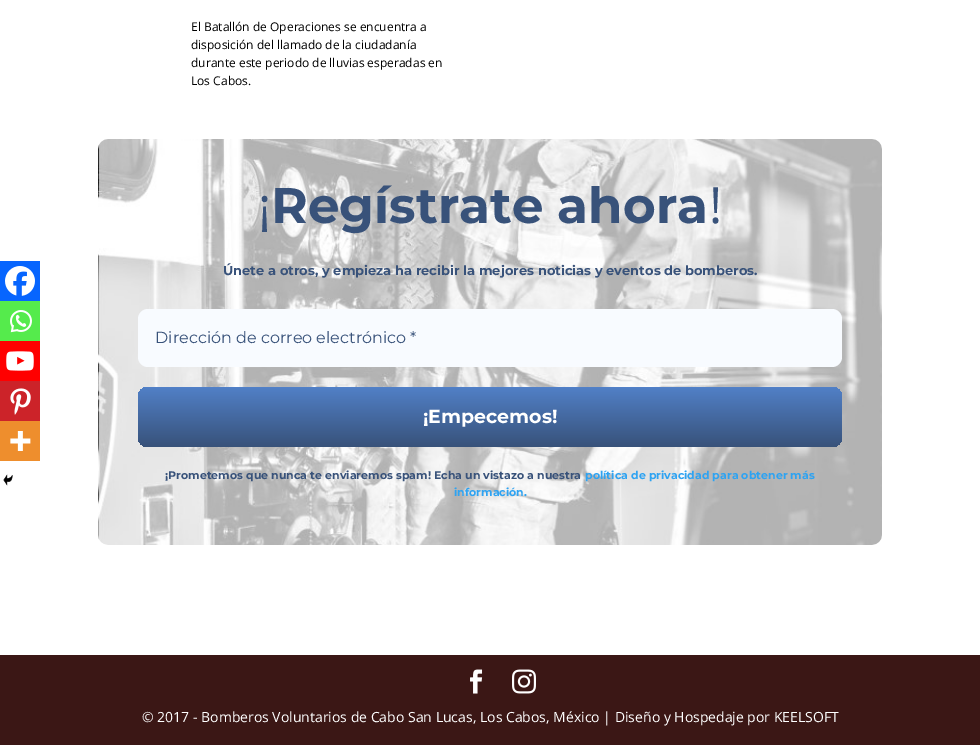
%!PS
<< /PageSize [980 745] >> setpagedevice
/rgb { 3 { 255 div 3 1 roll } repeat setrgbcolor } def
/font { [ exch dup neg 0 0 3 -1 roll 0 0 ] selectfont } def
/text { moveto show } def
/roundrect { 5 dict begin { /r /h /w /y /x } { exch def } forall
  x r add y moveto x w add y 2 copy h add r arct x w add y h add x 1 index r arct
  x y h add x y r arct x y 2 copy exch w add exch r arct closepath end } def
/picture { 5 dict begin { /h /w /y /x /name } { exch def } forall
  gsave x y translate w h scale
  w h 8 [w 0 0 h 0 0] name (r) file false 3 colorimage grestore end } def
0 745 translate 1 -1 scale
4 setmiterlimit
255 255 255 rgb
0 0 980 745 rectfill
7 101 254 rgb
0 261 40 40 rectfill
(img_01.rgb) 5 266 30 30 picture
85 235 76 rgb
0 301 40 40 rectfill
(img_02.rgb) 10 310 22 23 picture
255 0 0 rgb
0 341 40 40 rectfill
(img_03.rgb) 6 351 28 20 picture
204 35 41 rgb
0 381 40 40 rectfill
(img_04.rgb) 10 388 21 27 picture
238 142 45 rgb
0 421 40 40 rectfill
(img_05.rgb) 10 431 21 20 picture
(img_06.rgb) 3 474 10 12 picture
(img_07.rgb) 98 139 784 406 picture
248 251 255 rgb
138 309 704 58 10 roundrect fill
gsave 138 387 704 60 10 roundrect clip newpath
<< /ShadingType 2 /ColorSpace /DeviceRGB /Coords [490 447 490 387] /Extend [true true] /Function << /FunctionType 2 /Domain [0 1] /C0 [0.22 0.322 0.478] /C1 [0.318 0.502 0.78] /N 1 >> >> shfill grestore
59 23 21 rgb
0 655 980 90 rectfill
(img_08.rgb) 470 669 13 25 picture
(img_09.rgb) 512 669 24 25 picture
/OpenSans-Regular 12 font
0 0 0 rgb
(El Batallón de Operaciones se encuentra a) 191 31 text
(disposición del llamado de la ciudadanía) 191 49 text
(durante este periodo de lluvias esperadas en) 191 67 text
(Los Cabos.) 191 85 text
/OpenSans-Regular 50 font
56 82 122 rgb
(¡) 258 223 text
/Montserrat-Bold 50 font
(Regístrate ahora) 271 223 text
/OpenSans-Regular 50 font
(!) 709 223 text
/Montserrat-Bold 13 font
(Únete a otros, y empieza ha recibir la mejores noticias y eventos de bomberos.) 223 275 text
/Montserrat-Regular 16 font
(Dirección de correo electrónico *) 155 343 text
/Montserrat-Bold 19 font
255 255 255 rgb
(¡Empecemos!) 423 423 text
/Montserrat-Bold 11 font
56 82 122 rgb
(¡Prometemos que nunca te enviaremos spam! Echa un vistazo a nuestra) 165 479 text
46 163 242 rgb
(política de privacidad para obtener más) 585 479 text
(información.) 454 496 text
/OpenSans-Regular 14 font
255 255 255 rgb
(© 2017 - Bomberos Voluntarios de Cabo San Lucas, Los Cabos, México | Diseño y Hospedaje por KEELSOFT) 142 722 text
showpage
